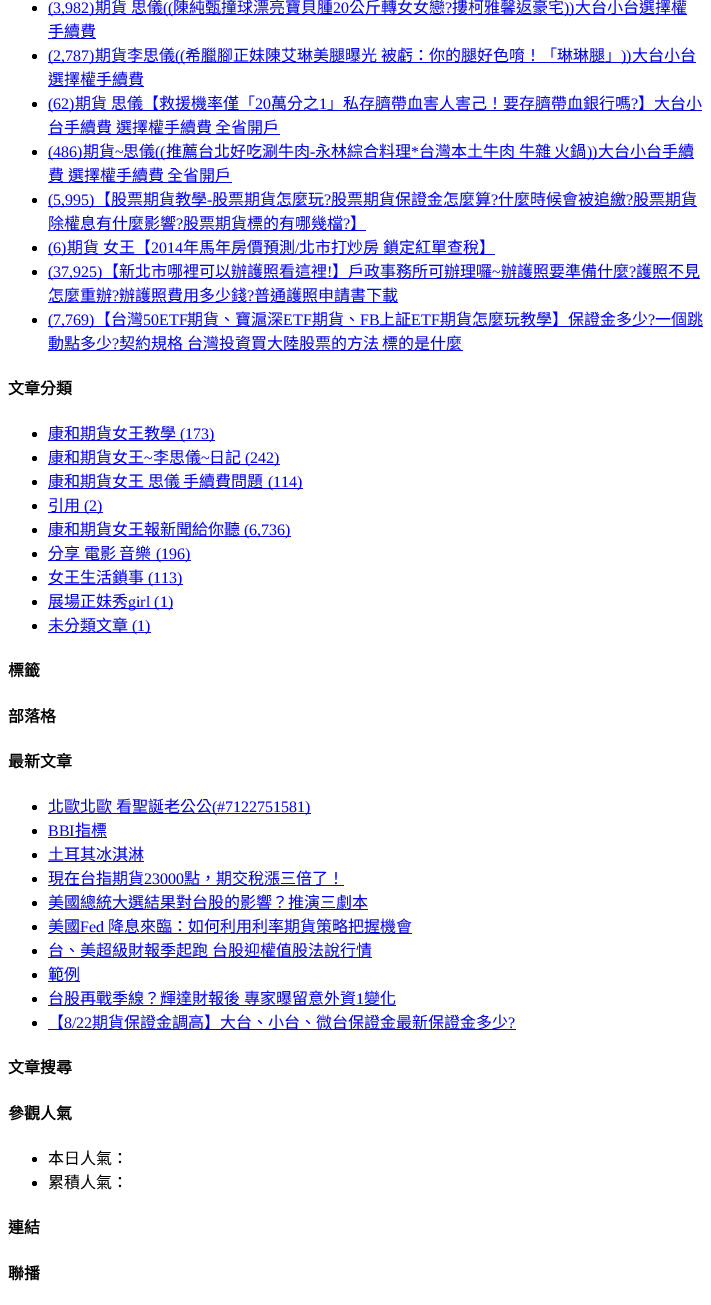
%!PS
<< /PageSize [711 1305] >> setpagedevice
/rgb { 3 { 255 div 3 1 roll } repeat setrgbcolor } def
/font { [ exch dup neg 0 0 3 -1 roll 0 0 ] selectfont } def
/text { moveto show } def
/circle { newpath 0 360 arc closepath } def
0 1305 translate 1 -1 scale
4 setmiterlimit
255 255 255 rgb
0 0 711 1305 rectfill
0 0 0 rgb
34.5 8.5 2.5 circle fill
0 0 238 rgb
48 14 639 1 rectfill
48 38 48 1 rectfill
0 0 0 rgb
34.5 56.5 2.5 circle fill
0 0 238 rgb
48 62 648 1 rectfill
48 86 96 1 rectfill
0 0 0 rgb
34.5 104.5 2.5 circle fill
0 0 238 rgb
48 110 654 1 rectfill
48 134 232 1 rectfill
0 0 0 rgb
34.5 152.5 2.5 circle fill
0 0 238 rgb
48 158 646 1 rectfill
48 182 184 1 rectfill
0 0 0 rgb
34.5 200.5 2.5 circle fill
0 0 238 rgb
48 206 649 1 rectfill
48 230 318 1 rectfill
0 0 0 rgb
34.5 248.5 2.5 circle fill
0 0 238 rgb
48 254 447 1 rectfill
0 0 0 rgb
34.5 272.5 2.5 circle fill
0 0 238 rgb
48 278 652 1 rectfill
48 302 350 1 rectfill
0 0 0 rgb
34.5 320.5 2.5 circle fill
0 0 238 rgb
48 326 655 1 rectfill
48 350 415 1 rectfill
0 0 0 rgb
34.5 434.5 2.5 circle fill
0 0 238 rgb
48 440 167 1 rectfill
0 0 0 rgb
34.5 458.5 2.5 circle fill
0 0 238 rgb
48 464 232 1 rectfill
0 0 0 rgb
34.5 482.5 2.5 circle fill
0 0 238 rgb
48 488 249 1 rectfill
297 488 6 1 rectfill
0 0 0 rgb
34.5 506.5 2.5 circle fill
0 0 238 rgb
48 512 55 1 rectfill
0 0 0 rgb
34.5 530.5 2.5 circle fill
0 0 238 rgb
48 536 243 1 rectfill
0 0 0 rgb
34.5 554.5 2.5 circle fill
0 0 238 rgb
48 560 143 1 rectfill
0 0 0 rgb
34.5 578.5 2.5 circle fill
0 0 238 rgb
48 584 135 1 rectfill
0 0 0 rgb
34.5 602.5 2.5 circle fill
0 0 238 rgb
48 608 125 1 rectfill
0 0 0 rgb
34.5 626.5 2.5 circle fill
0 0 238 rgb
48 632 103 1 rectfill
0 0 0 rgb
34.5 807.5 2.5 circle fill
0 0 238 rgb
48 813 263 1 rectfill
0 0 0 rgb
34.5 831.5 2.5 circle fill
0 0 238 rgb
48 837 59 1 rectfill
0 0 0 rgb
34.5 855.5 2.5 circle fill
0 0 238 rgb
48 861 96 1 rectfill
0 0 0 rgb
34.5 879.5 2.5 circle fill
0 0 238 rgb
48 885 296 1 rectfill
0 0 0 rgb
34.5 903.5 2.5 circle fill
0 0 238 rgb
48 909 320 1 rectfill
0 0 0 rgb
34.5 927.5 2.5 circle fill
0 0 238 rgb
48 933 364 1 rectfill
0 0 0 rgb
34.5 951.5 2.5 circle fill
0 0 238 rgb
48 957 324 1 rectfill
0 0 0 rgb
34.5 975.5 2.5 circle fill
0 0 238 rgb
48 981 32 1 rectfill
0 0 0 rgb
34.5 999.5 2.5 circle fill
0 0 238 rgb
48 1005 348 1 rectfill
0 0 0 rgb
34.5 1023.5 2.5 circle fill
0 0 238 rgb
48 1029 468 1 rectfill
0 0 0 rgb
34.5 1159.5 2.5 circle fill
34.5 1183.5 2.5 circle fill
/LiberationSerif-Regular 16 font
0 0 238 rgb
(\(3,982\)) 48 13 text
/NotoSansCJKTC-Regular 16 font
(期貨 思儀) 95 13 text
/LiberationSerif-Regular 16 font
(\(\() 163 13 text
/NotoSansCJKTC-Regular 16 font
(陳純甄撞球漂亮寶貝腫) 173 13 text
/LiberationSerif-Regular 16 font
(20) 333 13 text
/NotoSansCJKTC-Regular 16 font
(公斤轉女女戀) 349 13 text
/LiberationSerif-Regular 16 font
(?) 445 13 text
/NotoSansCJKTC-Regular 16 font
(摟柯雅馨返豪宅) 452 13 text
/LiberationSerif-Regular 16 font
(\)\)) 564 13 text
/NotoSansCJKTC-Regular 16 font
(大台小台選擇權) 575 13 text
(手續費) 48 37 text
/LiberationSerif-Regular 16 font
(\(2,787\)) 48 61 text
/NotoSansCJKTC-Regular 16 font
(期貨李思儀) 95 61 text
/LiberationSerif-Regular 16 font
(\(\() 175 61 text
/NotoSansCJKTC-Regular 16 font
(希臘腳正妹陳艾琳美腿曝光 被虧：你的腿好色唷！「琳琳腿」) 185 61 text
/LiberationSerif-Regular 16 font
(\)\)) 621 61 text
/NotoSansCJKTC-Regular 16 font
(大台小台) 632 61 text
(選擇權手續費) 48 85 text
/LiberationSerif-Regular 16 font
(\(62\)) 48 109 text
/NotoSansCJKTC-Regular 16 font
(期貨 思儀【救援機率僅「) 75 109 text
/LiberationSerif-Regular 16 font
(20) 255 109 text
/NotoSansCJKTC-Regular 16 font
(萬分之) 271 109 text
/LiberationSerif-Regular 16 font
(1) 319 109 text
/NotoSansCJKTC-Regular 16 font
(」私存臍帶血害人害己！要存臍帶血銀行嗎) 327 109 text
/LiberationSerif-Regular 16 font
(?) 631 109 text
/NotoSansCJKTC-Regular 16 font
(】大台小) 638 109 text
(台手續費 選擇權手續費 全省開戶) 48 133 text
/LiberationSerif-Regular 16 font
(\(486\)) 48 157 text
/NotoSansCJKTC-Regular 16 font
(期貨) 83 157 text
/LiberationSerif-Regular 16 font
(~) 115 157 text
/NotoSansCJKTC-Regular 16 font
(思儀) 123 157 text
/LiberationSerif-Regular 16 font
(\(\() 155 157 text
/NotoSansCJKTC-Regular 16 font
(推薦台北好吃涮牛肉) 166 157 text
/LiberationSerif-Regular 16 font
(-) 310 157 text
/NotoSansCJKTC-Regular 16 font
(永林綜合料理) 315 157 text
/LiberationSerif-Regular 16 font
(*) 411 157 text
/NotoSansCJKTC-Regular 16 font
(台灣本土牛肉 牛雜 火鍋) 419 157 text
/LiberationSerif-Regular 16 font
(\)\)) 587 157 text
/NotoSansCJKTC-Regular 16 font
(大台小台手續) 598 157 text
(費 選擇權手續費 全省開戶) 48 181 text
/LiberationSerif-Regular 16 font
(\(5,995\)) 48 205 text
/NotoSansCJKTC-Regular 16 font
(【股票期貨教學) 95 205 text
/LiberationSerif-Regular 16 font
(-) 207 205 text
/NotoSansCJKTC-Regular 16 font
(股票期貨怎麼玩) 212 205 text
/LiberationSerif-Regular 16 font
(?) 324 205 text
/NotoSansCJKTC-Regular 16 font
(股票期貨保證金怎麼算) 331 205 text
/LiberationSerif-Regular 16 font
(?) 491 205 text
/NotoSansCJKTC-Regular 16 font
(什麼時候會被追繳) 498 205 text
/LiberationSerif-Regular 16 font
(?) 626 205 text
/NotoSansCJKTC-Regular 16 font
(股票期貨) 633 205 text
(除權息有什麼影響) 48 229 text
/LiberationSerif-Regular 16 font
(?) 176 229 text
/NotoSansCJKTC-Regular 16 font
(股票期貨標的有哪幾檔) 183 229 text
/LiberationSerif-Regular 16 font
(?) 343 229 text
/NotoSansCJKTC-Regular 16 font
(】) 350 229 text
/LiberationSerif-Regular 16 font
(\(6\)) 48 253 text
/NotoSansCJKTC-Regular 16 font
(期貨 女王【) 67 253 text
/LiberationSerif-Regular 16 font
(2014) 151 253 text
/NotoSansCJKTC-Regular 16 font
(年馬年房價預測) 183 253 text
/LiberationSerif-Regular 16 font
(/) 295 253 text
/NotoSansCJKTC-Regular 16 font
(北市打炒房 鎖定紅單查稅】) 299 253 text
/LiberationSerif-Regular 16 font
(\(37,925\)) 48 277 text
/NotoSansCJKTC-Regular 16 font
(【新北市哪裡可以辦護照看這裡) 103 277 text
/LiberationSerif-Regular 16 font
(!) 327 277 text
/NotoSansCJKTC-Regular 16 font
(】戶政事務所可辦理囉) 332 277 text
/LiberationSerif-Regular 16 font
(~) 492 277 text
/NotoSansCJKTC-Regular 16 font
(辦護照要準備什麼) 501 277 text
/LiberationSerif-Regular 16 font
(?) 629 277 text
/NotoSansCJKTC-Regular 16 font
(護照不見) 636 277 text
(怎麼重辦) 48 301 text
/LiberationSerif-Regular 16 font
(?) 112 301 text
/NotoSansCJKTC-Regular 16 font
(辦護照費用多少錢) 119 301 text
/LiberationSerif-Regular 16 font
(?) 247 301 text
/NotoSansCJKTC-Regular 16 font
(普通護照申請書下載) 254 301 text
/LiberationSerif-Regular 16 font
(\(7,769\)) 48 325 text
/NotoSansCJKTC-Regular 16 font
(【台灣) 95 325 text
/LiberationSerif-Regular 16 font
(50ETF) 143 325 text
/NotoSansCJKTC-Regular 16 font
(期貨、寶滬深) 187 325 text
/LiberationSerif-Regular 16 font
(ETF) 283 325 text
/NotoSansCJKTC-Regular 16 font
(期貨、) 312 325 text
/LiberationSerif-Regular 16 font
(FB) 360 325 text
/NotoSansCJKTC-Regular 16 font
(上証) 379 325 text
/LiberationSerif-Regular 16 font
(ETF) 411 325 text
/NotoSansCJKTC-Regular 16 font
(期貨怎麼玩教學】保證金多少) 440 325 text
/LiberationSerif-Regular 16 font
(?) 648 325 text
/NotoSansCJKTC-Regular 16 font
(一個跳) 655 325 text
(動點多少) 48 349 text
/LiberationSerif-Regular 16 font
(?) 112 349 text
/NotoSansCJKTC-Regular 16 font
(契約規格 台灣投資買大陸股票的方法 標的是什麼) 119 349 text
/NotoSansCJKTC-Bold 16 font
0 0 0 rgb
(文章分類) 8 394 text
/NotoSansCJKTC-Regular 16 font
0 0 238 rgb
(康和期貨女王教學) 48 439 text
/LiberationSerif-Regular 16 font
(\(173\)) 180 439 text
/NotoSansCJKTC-Regular 16 font
(康和期貨女王) 48 463 text
/LiberationSerif-Regular 16 font
(~) 144 463 text
/NotoSansCJKTC-Regular 16 font
(李思儀) 153 463 text
/LiberationSerif-Regular 16 font
(~) 201 463 text
/NotoSansCJKTC-Regular 16 font
(日記) 209 463 text
/LiberationSerif-Regular 16 font
(\(242\)) 245 463 text
/NotoSansCJKTC-Regular 16 font
(康和期貨女王 思儀 手續費問題) 48 487 text
/LiberationSerif-Regular 16 font
(\(114) 268 487 text
(\)) 297 487 text
/NotoSansCJKTC-Regular 16 font
(引用) 48 511 text
/LiberationSerif-Regular 16 font
(\(2\)) 84 511 text
/NotoSansCJKTC-Regular 16 font
(康和期貨女王報新聞給你聽) 48 535 text
/LiberationSerif-Regular 16 font
(\(6,736\)) 244 535 text
/NotoSansCJKTC-Regular 16 font
(分享 電影 音樂) 48 559 text
/LiberationSerif-Regular 16 font
(\(196\)) 156 559 text
/NotoSansCJKTC-Regular 16 font
(女王生活鎖事) 48 583 text
/LiberationSerif-Regular 16 font
(\(113\)) 148 583 text
/NotoSansCJKTC-Regular 16 font
(展場正妹秀) 48 607 text
/LiberationSerif-Regular 16 font
(girl \(1\)) 128 607 text
/NotoSansCJKTC-Regular 16 font
(未分類文章) 48 631 text
/LiberationSerif-Regular 16 font
(\(1\)) 132 631 text
/NotoSansCJKTC-Bold 16 font
0 0 0 rgb
(標籤) 8 676 text
(部落格) 8 722 text
(最新文章) 8 767 text
/NotoSansCJKTC-Regular 16 font
0 0 238 rgb
(北歐北歐 看聖誕老公公) 48 812 text
/LiberationSerif-Regular 16 font
(\(#7122751581\)) 212 812 text
(BBI) 48 836 text
/NotoSansCJKTC-Regular 16 font
(指標) 75 836 text
(土耳其冰淇淋) 48 860 text
(現在台指期貨) 48 884 text
/LiberationSerif-Regular 16 font
(23000) 144 884 text
/NotoSansCJKTC-Regular 16 font
(點，期交稅漲三倍了！) 184 884 text
(美國總統大選結果對台股的影響？推演三劇本) 48 908 text
(美國) 48 932 text
/LiberationSerif-Regular 16 font
(Fed) 80 932 text
/NotoSansCJKTC-Regular 16 font
(降息來臨：如何利用利率期貨策略把握機會) 108 932 text
(台、美超級財報季起跑 台股迎權值股法說行情) 48 956 text
(範例) 48 980 text
(台股再戰季線？輝達財報後 專家曝留意外資) 48 1004 text
/LiberationSerif-Regular 16 font
(1) 356 1004 text
/NotoSansCJKTC-Regular 16 font
(變化) 364 1004 text
(【) 48 1028 text
/LiberationSerif-Regular 16 font
(8/22) 64 1028 text
/NotoSansCJKTC-Regular 16 font
(期貨保證金調高】大台、小台、微台保證金最新保證金多少) 92 1028 text
/LiberationSerif-Regular 16 font
(?) 508 1028 text
/NotoSansCJKTC-Bold 16 font
0 0 0 rgb
(文章搜尋) 8 1073 text
(參觀人氣) 8 1119 text
/NotoSansCJKTC-Regular 16 font
(本日人氣：) 48 1164 text
(累積人氣：) 48 1188 text
/NotoSansCJKTC-Bold 16 font
(連結) 8 1233 text
(聯播) 8 1279 text
showpage
